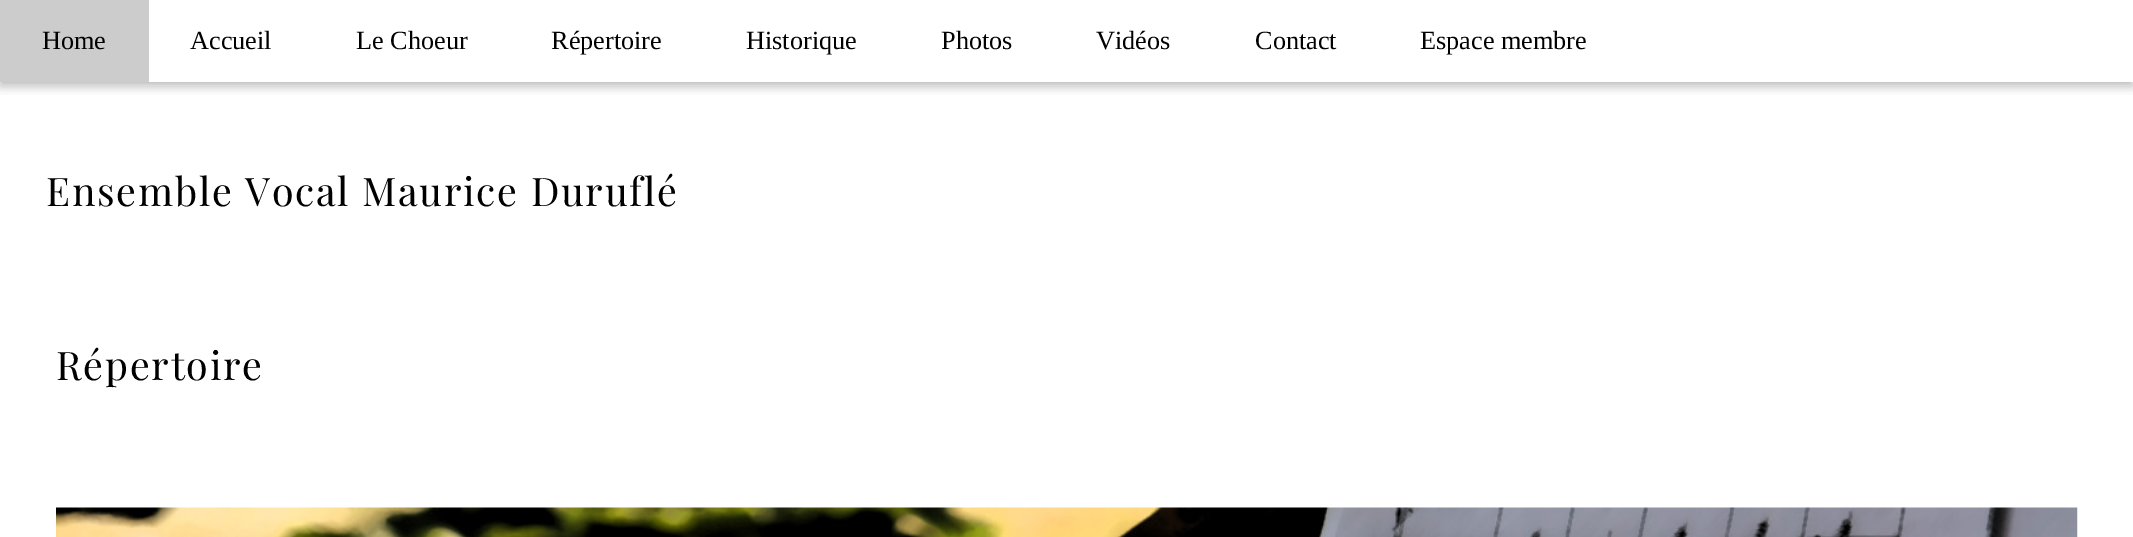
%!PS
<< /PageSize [2133 537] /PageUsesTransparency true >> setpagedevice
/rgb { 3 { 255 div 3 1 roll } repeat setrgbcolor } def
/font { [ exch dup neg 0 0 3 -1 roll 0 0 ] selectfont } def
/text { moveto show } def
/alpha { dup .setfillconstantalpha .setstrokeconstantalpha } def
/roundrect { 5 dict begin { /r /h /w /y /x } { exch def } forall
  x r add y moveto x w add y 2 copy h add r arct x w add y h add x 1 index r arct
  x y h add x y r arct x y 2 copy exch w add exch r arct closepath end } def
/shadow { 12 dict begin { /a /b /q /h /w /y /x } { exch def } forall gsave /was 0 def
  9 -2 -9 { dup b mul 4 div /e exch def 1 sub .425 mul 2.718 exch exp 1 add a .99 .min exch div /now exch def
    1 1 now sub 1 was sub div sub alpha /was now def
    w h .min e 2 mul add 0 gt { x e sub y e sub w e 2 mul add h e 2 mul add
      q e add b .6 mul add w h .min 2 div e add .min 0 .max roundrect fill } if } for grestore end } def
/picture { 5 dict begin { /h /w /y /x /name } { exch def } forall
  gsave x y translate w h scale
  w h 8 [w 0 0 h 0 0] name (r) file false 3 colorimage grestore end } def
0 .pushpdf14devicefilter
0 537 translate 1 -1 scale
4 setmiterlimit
255 255 255 rgb
0 0 2133 537 rectfill
gsave
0 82 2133 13 rectclip
0 0 0 rgb
0 4 2133 82 0 9 0.12 shadow
grestore
gsave
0 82 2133 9 rectclip
0 0 0 rgb
0 4 2133 82 0 4.5 0.16 shadow
grestore
204 204 204 rgb
0 0 149 82 rectfill
(img_01.rgb) 56 507 2022 30 picture
/LiberationSerif-Regular 26.25 font
0 0 0 rgb
(Home) 42 49 text
(Accueil) 190 49 text
(Le Choeur) 356 49 text
(Répertoire) 551 49 text
(Historique) 746 49 text
(Photos) 941 49 text
(Vidéos) 1096 49 text
(Contact) 1255 49 text
(Espace membre) 1420 49 text
/PlayfairDisplay-Regular 39.4 font
46 206 moveto 1.75 0 (Ensemble Vocal Maurice Duruflé) ashow
56 380 moveto 1.75 0 (Répertoire) ashow
.poppdf14devicefilter showpage
